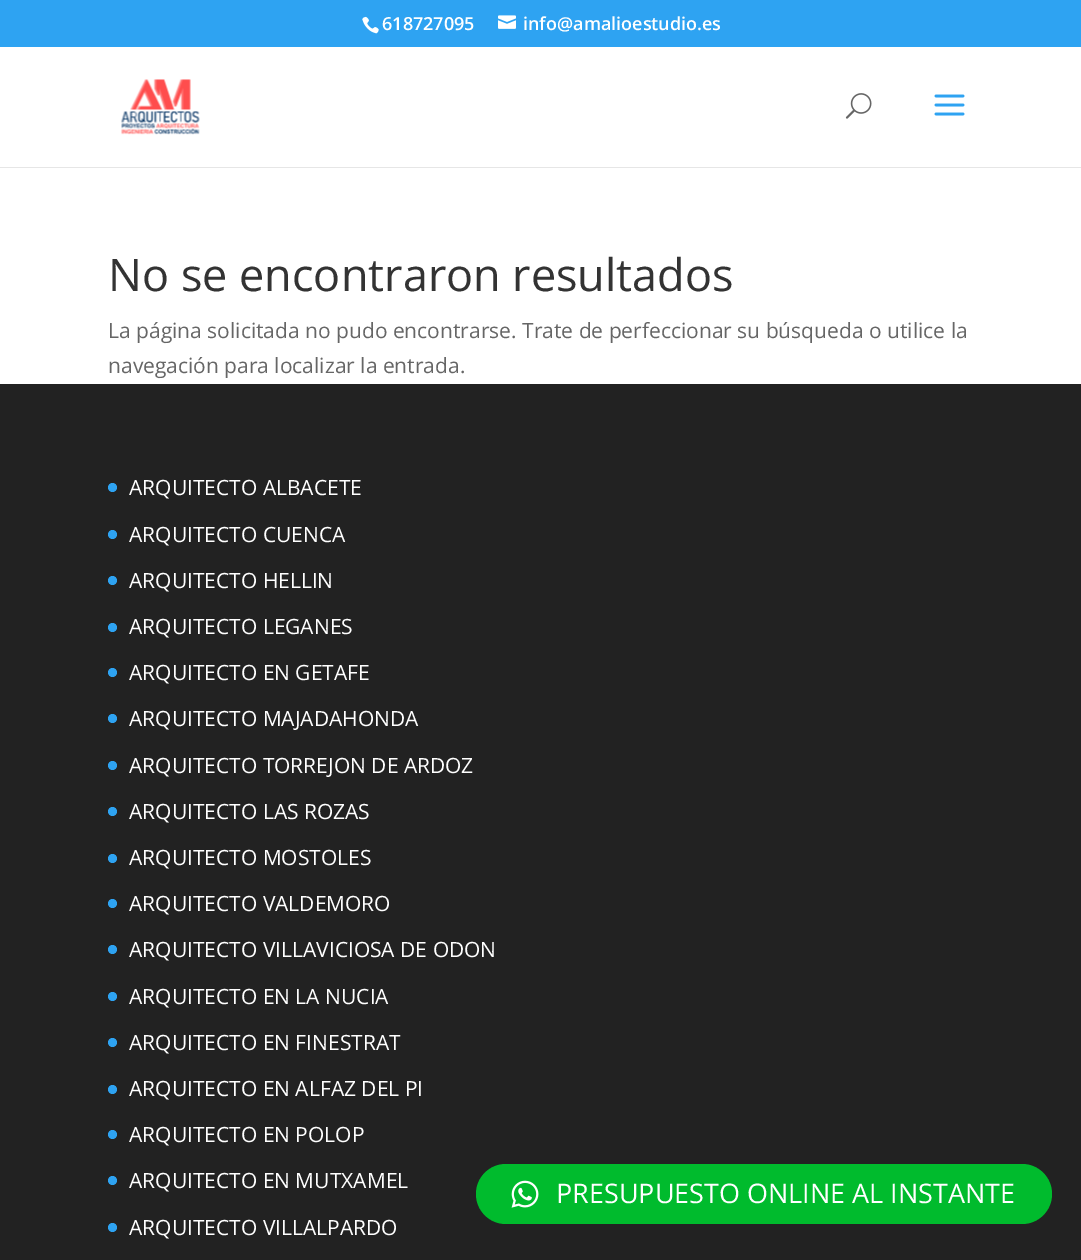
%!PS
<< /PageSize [1081 1260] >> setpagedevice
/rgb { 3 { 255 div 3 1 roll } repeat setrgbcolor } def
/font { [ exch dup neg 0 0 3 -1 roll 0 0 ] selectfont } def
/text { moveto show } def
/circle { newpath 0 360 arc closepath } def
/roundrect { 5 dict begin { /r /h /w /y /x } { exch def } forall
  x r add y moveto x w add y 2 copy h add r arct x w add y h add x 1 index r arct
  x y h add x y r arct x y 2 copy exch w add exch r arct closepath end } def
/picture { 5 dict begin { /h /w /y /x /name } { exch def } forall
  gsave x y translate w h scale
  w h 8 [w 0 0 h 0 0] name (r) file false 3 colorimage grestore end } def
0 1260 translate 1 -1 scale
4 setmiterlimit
255 255 255 rgb
0 0 1081 1260 rectfill
46 163 242 rgb
0 0 1081 47 rectfill
(img_01.rgb) 362 16 17 18 picture
(img_02.rgb) 498 15 18 14 picture
230 230 230 rgb
0 166 moveto 0 2 rlineto 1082 0 rlineto 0 -120 rlineto 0 118 rlineto closepath fill
255 255 255 rgb
0 166 1081 1 rectfill
(img_03.rgb) 121 79 79 56 picture
(img_04.rgb) 845 93 27 26 picture
(img_05.rgb) 934 94 31 22 picture
34 34 34 rgb
0 384 1081 876 rectfill
46 163 242 rgb
112.5 487.5 4.5 circle fill
112.5 534.5 4.5 circle fill
112.5 580.5 4.5 circle fill
112.5 627.5 4.5 circle fill
112.5 672.5 4.5 circle fill
112.5 718.5 4.5 circle fill
112.5 765.5 4.5 circle fill
112.5 811.5 4.5 circle fill
112.5 858.5 4.5 circle fill
112.5 903.5 4.5 circle fill
112.5 949.5 4.5 circle fill
112.5 996.5 4.5 circle fill
112.5 1042.5 4.5 circle fill
112.5 1089.5 4.5 circle fill
112.5 1134.5 4.5 circle fill
112.5 1180.5 4.5 circle fill
112.5 1227.5 4.5 circle fill
0 187 45 rgb
476 1164 576 60 30 roundrect fill
(img_06.rgb) 511 1180 28 28 picture
/OpenSans-SemiBold 18 font
255 255 255 rgb
(618727095) 382 30 text
(info@amalioestudio.es) 523 30 text
/OpenSans-Regular 45 font
51 51 51 rgb
(No se encontraron resultados) 108 291 text
/OpenSans-Regular 21 font
102 102 102 rgb
(La página solicitada no pudo encontrarse. Trate de perfeccionar su búsqueda o utilice la) 108 338 text
(navegación para localizar la entrada.) 108 373 text
255 255 255 rgb
(ARQUITECTO ALBACETE) 129 495 text
(ARQUITECTO CUENCA) 129 542 text
(ARQUITECTO HELLIN) 129 588 text
(ARQUITECTO LEGANES) 129 634 text
(ARQUITECTO EN GETAFE) 129 680 text
(ARQUITECTO MAJADAHONDA) 129 726 text
(ARQUITECTO TORREJON DE ARDOZ) 129 773 text
(ARQUITECTO LAS ROZAS) 129 819 text
(ARQUITECTO MOSTOLES) 129 865 text
(ARQUITECTO VALDEMORO) 129 911 text
(ARQUITECTO VILLAVICIOSA DE ODON) 129 957 text
(ARQUITECTO EN LA NUCIA) 129 1004 text
(ARQUITECTO EN FINESTRAT) 129 1050 text
(ARQUITECTO EN ALFAZ DEL PI) 129 1096 text
(ARQUITECTO EN POLOP) 129 1142 text
(ARQUITECTO EN MUTXAMEL) 129 1188 text
(ARQUITECTO VILLALPARDO) 129 1235 text
/OpenSans-Regular 27 font
(PRESUPUESTO ONLINE AL INSTANTE) 556 1203 text
showpage
